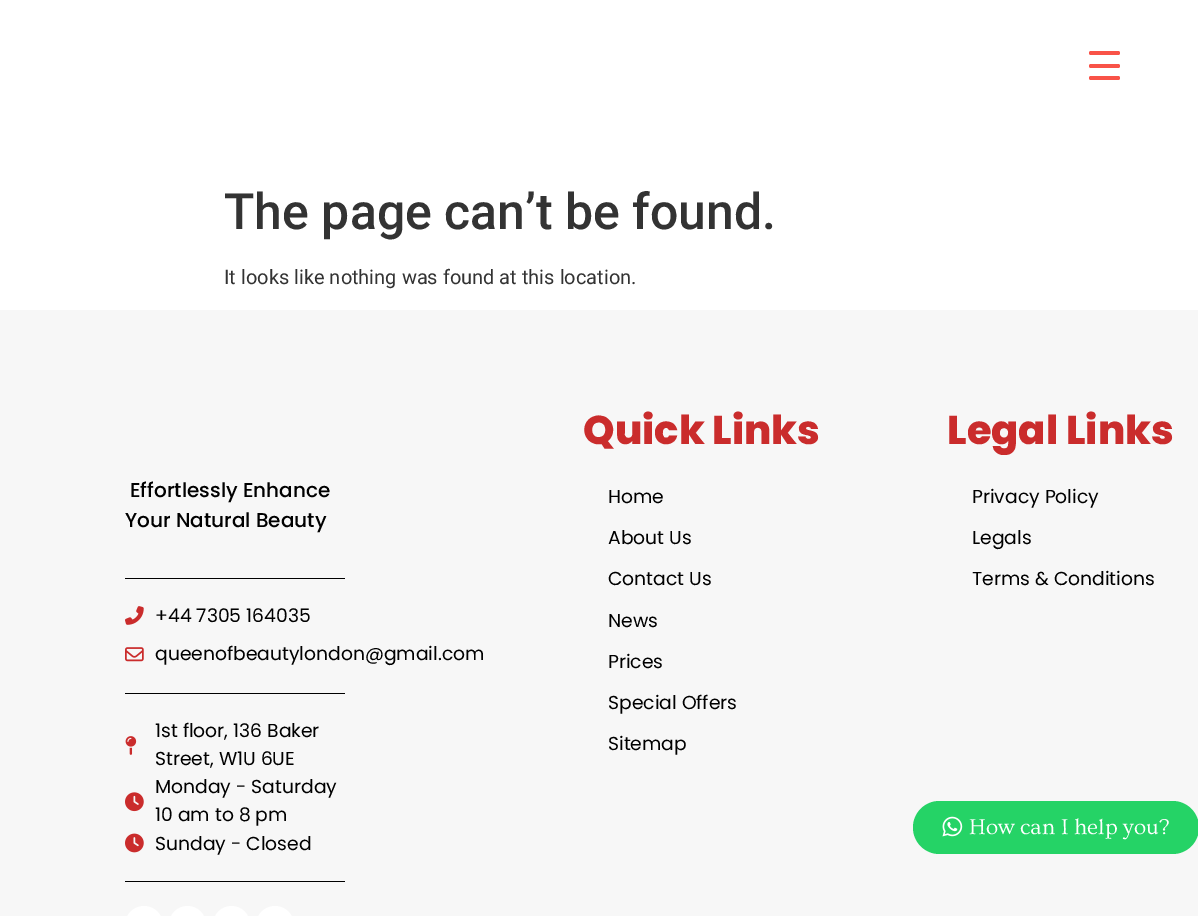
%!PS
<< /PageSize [1198 916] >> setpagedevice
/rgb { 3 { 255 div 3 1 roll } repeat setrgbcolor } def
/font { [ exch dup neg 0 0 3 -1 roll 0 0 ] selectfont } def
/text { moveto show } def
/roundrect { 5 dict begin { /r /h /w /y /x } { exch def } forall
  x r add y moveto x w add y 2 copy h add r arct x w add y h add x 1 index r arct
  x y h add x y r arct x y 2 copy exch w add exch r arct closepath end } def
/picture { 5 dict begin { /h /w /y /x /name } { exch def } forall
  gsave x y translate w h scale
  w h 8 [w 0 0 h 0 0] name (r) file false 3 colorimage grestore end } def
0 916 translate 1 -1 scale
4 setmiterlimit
255 255 255 rgb
0 0 1198 916 rectfill
249 83 72 rgb
1089 64 31 4 2 roundrect fill
1089 51 31 4 2 roundrect fill
1089 76 31 4 2 roundrect fill
247 247 247 rgb
0 310 1198 606 rectfill
0 0 0 rgb
125 578 220 1 rectfill
(img_01.rgb) 125 606 19 19 picture
(img_02.rgb) 125 647 19 15 picture
125 693 220 1 rectfill
(img_03.rgb) 125 736 12 19 picture
(img_04.rgb) 125 792 19 20 picture
(img_05.rgb) 125 833 19 20 picture
125 881 220 1 rectfill
255 255 255 rgb
125 906 38 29 19 roundrect fill
169 906 37 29 18.5 roundrect fill
213 906 37 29 18.5 roundrect fill
256 906 38 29 19 roundrect fill
37 211 102 rgb
913 801 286 53 26.5 roundrect fill
(img_06.rgb) 942 816 21 21 picture
/Roboto-Medium 50 font
51 51 51 rgb
(The page can’t be found.) 224 229 text
/Roboto-Regular 20 font
(It looks like nothing was found at this location.) 224 284 text
/Poppins-Medium 20 font
0 0 0 rgb
(Effortlessly Enhance) 130 497 text
(Your Natural Beauty) 125 527 text
/Poppins-Regular 18.75 font
(+44 7305 164035) 155 622 text
(queenofbeautylondon@gmail.com) 155 660 text
(1st floor, 136 Baker) 155 737 text
(Street, W1U 6UE) 155 765 text
(Monday - Saturday) 155 793 text
(10 am to 8 pm) 155 821 text
(Sunday - Closed) 155 850 text
/Poppins-ExtraBold 40 font
202 44 44 rgb
(Quick Links) 583 444 text
/Poppins-Regular 18.75 font
0 0 0 rgb
(Home) 608 503 text
(About Us) 608 544 text
(Contact Us) 608 585 text
(News) 608 627 text
(Prices) 608 668 text
(Special Offers) 608 709 text
(Sitemap) 608 750 text
/Poppins-ExtraBold 40 font
202 44 44 rgb
(Legal Links) 947 444 text
/Poppins-Regular 18.75 font
0 0 0 rgb
(Privacy Policy) 972 503 text
(Legals) 972 544 text
(Terms & Conditions) 972 585 text
/Ovo-Regular 22.5 font
255 255 255 rgb
(How can I help you?) 969 834 text
showpage
